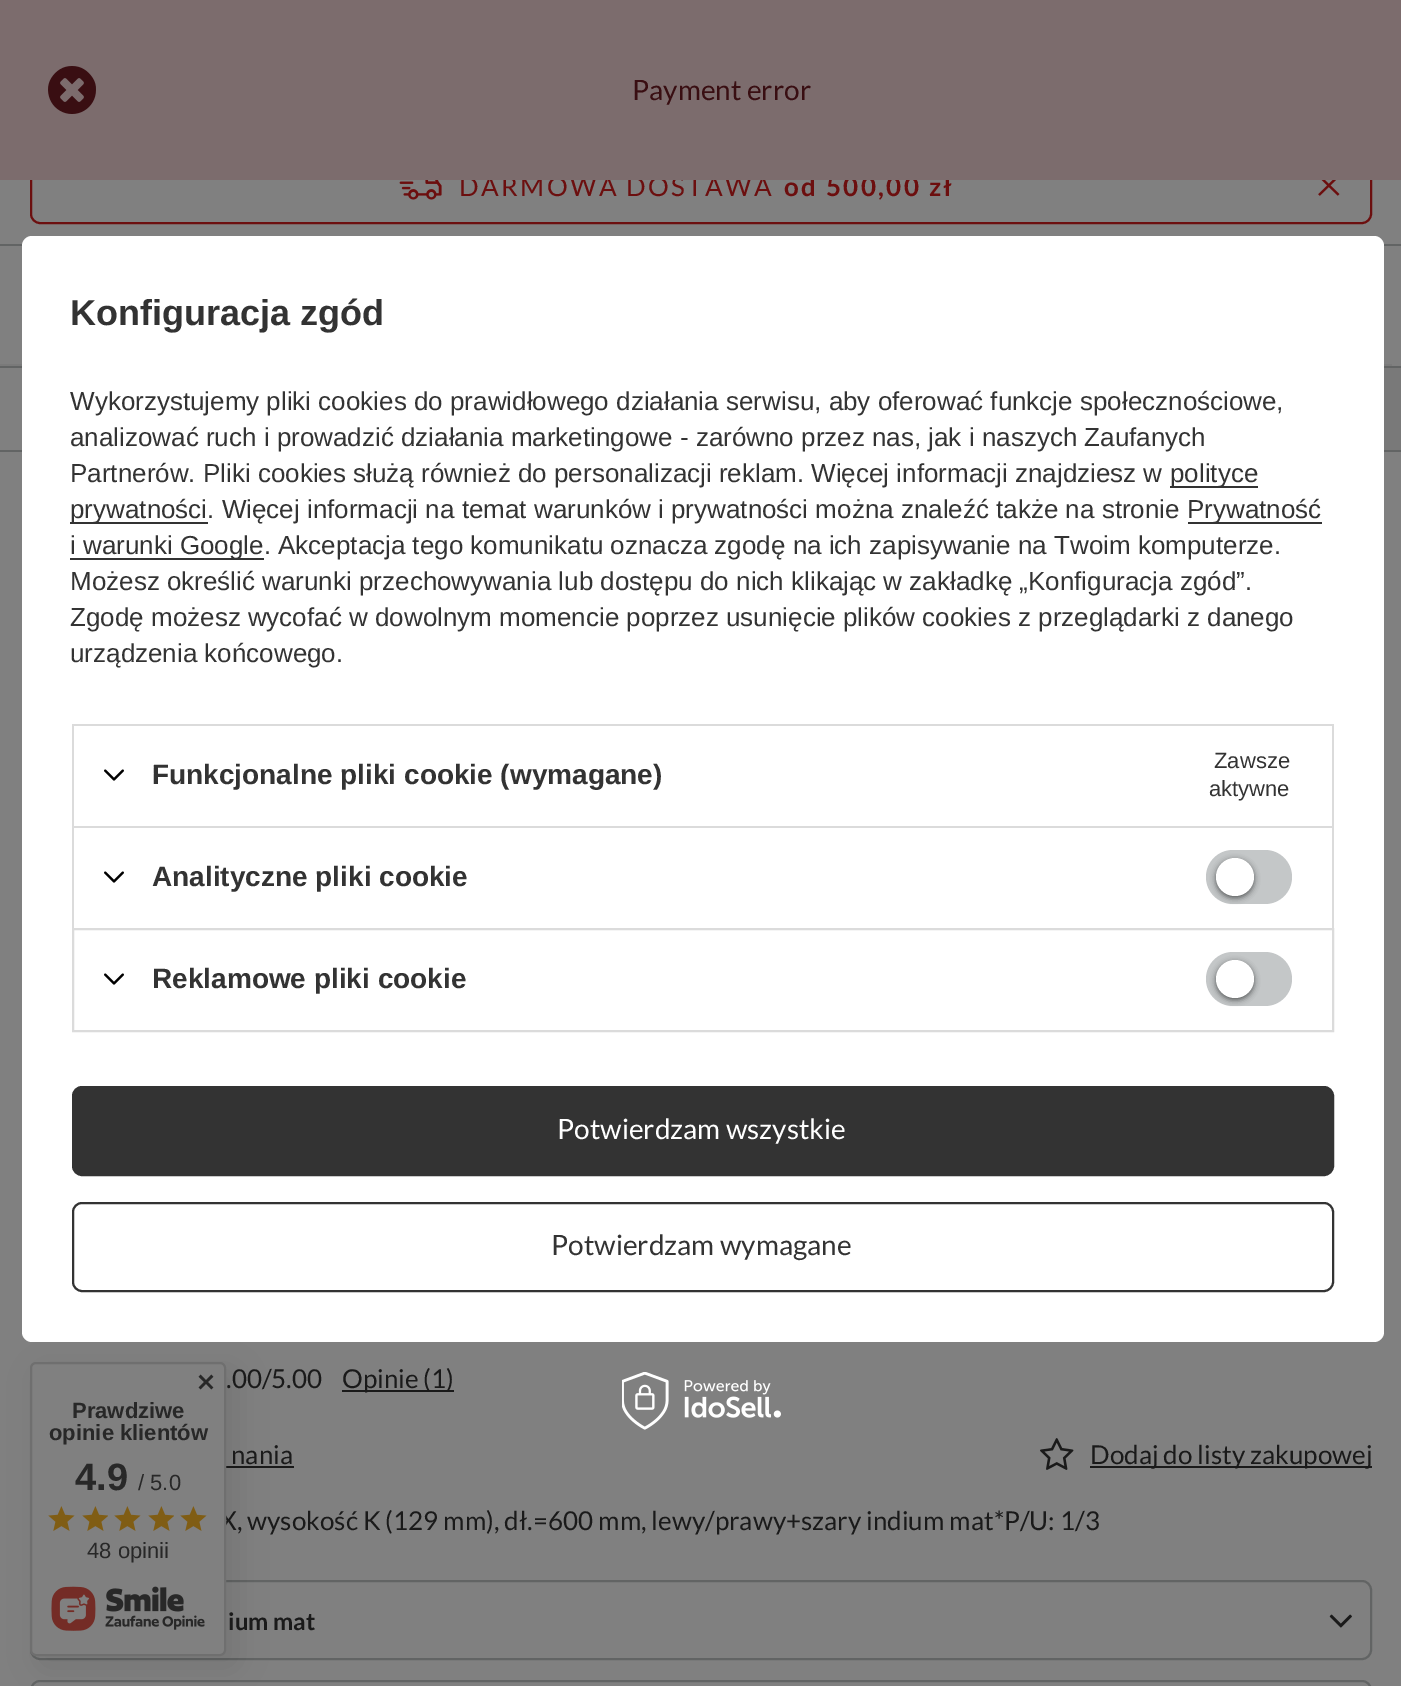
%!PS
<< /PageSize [1401 1686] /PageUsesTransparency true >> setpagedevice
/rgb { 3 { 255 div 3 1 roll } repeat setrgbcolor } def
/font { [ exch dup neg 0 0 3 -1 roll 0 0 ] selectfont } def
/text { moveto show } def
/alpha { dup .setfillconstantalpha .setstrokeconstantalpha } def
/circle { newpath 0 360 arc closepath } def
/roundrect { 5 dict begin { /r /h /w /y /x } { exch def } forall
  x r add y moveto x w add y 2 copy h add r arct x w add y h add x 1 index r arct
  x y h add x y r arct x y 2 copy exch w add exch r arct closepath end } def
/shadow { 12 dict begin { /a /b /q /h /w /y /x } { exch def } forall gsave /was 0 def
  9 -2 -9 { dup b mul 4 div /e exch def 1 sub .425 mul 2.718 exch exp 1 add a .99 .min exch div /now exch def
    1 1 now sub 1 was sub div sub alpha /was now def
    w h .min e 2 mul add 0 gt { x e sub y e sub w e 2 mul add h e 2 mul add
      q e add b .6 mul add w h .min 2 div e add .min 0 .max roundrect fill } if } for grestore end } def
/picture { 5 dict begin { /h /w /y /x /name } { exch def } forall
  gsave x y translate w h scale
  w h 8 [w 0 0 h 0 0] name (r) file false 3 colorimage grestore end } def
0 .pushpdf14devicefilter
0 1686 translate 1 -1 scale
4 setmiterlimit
128 128 128 rgb
0 0 1401 1686 rectfill
98 100 100 rgb
0 366 1401 2 rectfill
108 15 15 rgb
2 setlinewidth
31 149 1340 74 9 roundrect stroke
(img_02.rgb) 399 180 43 20 picture
(img_03.rgb) 1318 180 22 16 picture
98 100 100 rgb
0 244 1401 2 rectfill
122 122 122 rgb
0 364 1392 2 rectfill
121 121 121 rgb
1384 368 17 82 rectfill
98 100 100 rgb
0 450 1401 2 rectfill
26 26 26 rgb
342 1390 112 2 rectfill
226 1466 68 2 rectfill
(img_04.rgb) 1040 1438 34 32 picture
1090 1466 282 2 rectfill
98 100 100 rgb
31 1581 1340 78 9 roundrect stroke
(img_05.rgb) 1329 1614 23 14 picture
31 1681 1340 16 9 roundrect stroke
0 0 0 rgb
40 1372 196 294 6 15 0.1 shadow
255 255 255 rgb
22 236 1362 1106 10 roundrect fill
51 51 51 rgb
1170 486 88 2 rectfill
70 522 138 2 rectfill
1188 522 134 2 rectfill
70 558 194 2 rectfill
219 219 219 rgb
72 724 1262 2 rectfill
1332 724 2 102 rectfill
72 724 2 102 rectfill
(img_06.rgb) 104 769 20 12 picture
72 826 1262 2 rectfill
1332 826 2 102 rectfill
72 826 2 102 rectfill
(img_06.rgb) 104 871 20 12 picture
196 199 200 rgb
1206 850 86 54 27 roundrect fill
0 0 0 rgb
1216 860 38 38 19 3 0.56 shadow
255 255 255 rgb
1235 877 19 circle fill
219 219 219 rgb
73 929 1260 102 rectstroke
(img_06.rgb) 104 973 20 12 picture
196 199 200 rgb
1206 952 86 54 27 roundrect fill
0 0 0 rgb
1216 962 38 38 19 3 0.56 shadow
255 255 255 rgb
1235 979 19 circle fill
51 51 51 rgb
73 1087 1260 88 9 roundrect gsave fill grestore
stroke
73 1203 1260 88 9 roundrect stroke
(img_07.rgb) 622 1372 159 58 picture
/Lato-Regular 26 font
108 15 15 rgb
459 196 moveto 2.4 0 (DARMOWA DOSTAWA) ashow
/Lato-Bold 26 font
784 196 moveto 2.4 0 (od 500,00 zł) ashow
124 108 109 rgb
0 0 1401 180 rectfill
(img_01.rgb) 48 66 48 48 picture
/Lato-Regular 28 font
57 14 18 rgb
(Payment error) 632 100 text
/Lato-Regular 26 font
26 26 26 rgb
(.00/5.00) 226 1388 text
(Opinie \(1\)) 342 1388 text
(nania) 231 1464 text
(Dodaj do listy zakupowej) 1090 1464 text
(X, wysokość K \(129 mm\), dł.=600 mm, lewy/prawy+szary indium mat*P/U: 1/3) 220 1530 text
/Lato-Bold 24 font
(ium mat) 228 1630 text
/LiberationSans-Bold 36 font
51 51 51 rgb
(Konfiguracja zgód) 70 325 text
/LiberationSans-Regular 26 font
(Wykorzystujemy pliki cookies do prawidłowego działania serwisu, aby oferować funkcje społecznościowe,) 70 410 text
(analizować ruch i prowadzić działania marketingowe - zarówno przez nas, jak i naszych Zaufanych) 70 446 text
(Partnerów. Pliki cookies służą również do personalizacji reklam. Więcej informacji znajdziesz w) 70 482 text
(polityce) 1170 482 text
(prywatności. Więcej informacji na temat warunków i prywatności można znaleźć także na stronie) 70 518 text
(Prywatność) 1187 518 text
(i warunki Google. Akceptacja tego komunikatu oznacza zgodę na ich zapisywanie na Twoim komputerze.) 70 554 text
(Możesz określić warunki przechowywania lub dostępu do nich klikając w zakładkę „Konfiguracja zgód”.) 70 590 text
(Zgodę możesz wycofać w dowolnym momencie poprzez usunięcie plików cookies z przeglądarki z danego) 70 626 text
(urządzenia końcowego.) 70 662 text
/LiberationSans-Bold 28 font
(Funkcjonalne pliki cookie \(wymagane\)) 152 784 text
/LiberationSans-Regular 22 font
(Zawsze) 1214 768 text
(aktywne) 1209 796 text
/LiberationSans-Bold 28 font
(Analityczne pliki cookie) 152 886 text
(Reklamowe pliki cookie) 152 988 text
/Lato-Regular 28 font
255 255 255 rgb
(Potwierdzam wszystkie) 557 1139 text
51 51 51 rgb
(Potwierdzam wymagane) 551 1255 text
128 128 128 rgb
31 1363 194 292 5 roundrect gsave fill grestore
111 111 111 rgb
stroke
(img_08.rgb) 198 1374 16 16 picture
/LiberationSans-Bold 22 font
40 40 40 rgb
(Prawdziwe) 72 1418 text
(opinie klientów) 49 1440 text
/LiberationSans-Bold 38 font
(4.9) 75 1490 text
/LiberationSans-Regular 22 font
(/ 5.0) 138 1490 text
(img_09.rgb) 48 1506 27 25 picture
(img_10.rgb) 82 1506 26 25 picture
(img_09.rgb) 114 1506 27 25 picture
(img_10.rgb) 148 1506 26 25 picture
(img_09.rgb) 180 1506 27 25 picture
(48 opinii) 87 1558 text
(img_11.rgb) 51 1586 154 45 picture
.poppdf14devicefilter showpage
